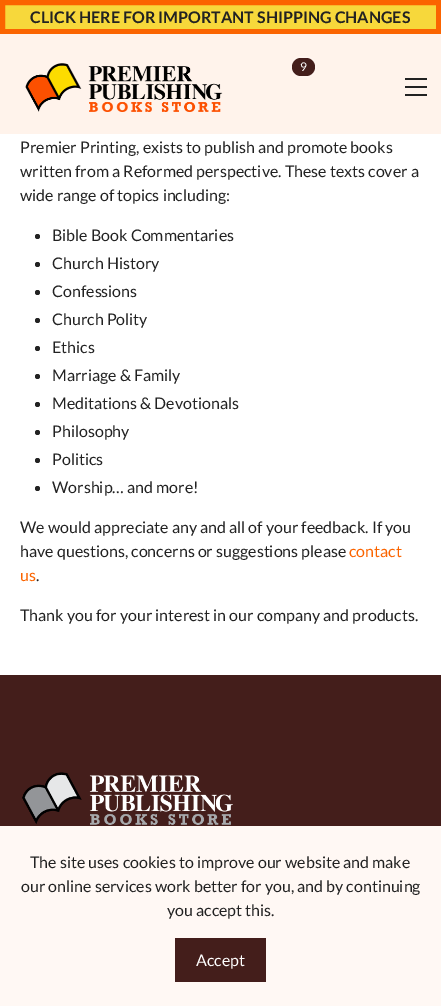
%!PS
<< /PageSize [441 1006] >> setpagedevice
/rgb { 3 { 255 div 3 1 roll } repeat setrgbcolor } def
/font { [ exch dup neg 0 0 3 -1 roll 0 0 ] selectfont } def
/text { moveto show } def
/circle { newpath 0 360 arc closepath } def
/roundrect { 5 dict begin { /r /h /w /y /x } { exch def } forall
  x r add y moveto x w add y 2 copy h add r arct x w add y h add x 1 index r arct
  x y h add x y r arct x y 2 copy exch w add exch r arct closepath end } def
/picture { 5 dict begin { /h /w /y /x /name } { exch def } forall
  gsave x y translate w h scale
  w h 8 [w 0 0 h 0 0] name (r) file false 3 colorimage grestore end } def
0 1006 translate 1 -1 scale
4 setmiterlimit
255 255 255 rgb
0 0 441 1006 rectfill
247 216 59 rgb
2.5 2.5 moveto 436 0 rlineto 0 29 rlineto -436 0 rlineto closepath gsave fill grestore
251 100 0 rgb
5 setlinewidth
stroke
255 243 235 rgb
0 34 441 100 rectfill
(img_01.rgb) 25 63 198 49 picture
255 245 239 rgb
2 setlinewidth
291 57 25 20 10 roundrect stroke
68 30 27 rgb
292 58 23 18 9 roundrect fill
34 34 34 rgb
405 78 22 2 rectfill
405 86 22 2 rectfill
405 94 22 2 rectfill
37.5 236.5 2.5 circle fill
37.5 264.5 2.5 circle fill
37.5 292.5 2.5 circle fill
37.5 320.5 2.5 circle fill
37.5 348.5 2.5 circle fill
37.5 376.5 2.5 circle fill
37.5 404.5 2.5 circle fill
37.5 432.5 2.5 circle fill
37.5 460.5 2.5 circle fill
37.5 488.5 2.5 circle fill
68 30 27 rgb
0 675 441 151 rectfill
(img_02.rgb) 22 772 211 53 picture
255 248 244 rgb
0 826 441 180 rectfill
68 30 27 rgb
175 938 91 44 rectfill
/Lato-Bold 16 font
34 34 34 rgb
(CLICK HERE FOR IMPORTANT SHIPPING CHANGES) 30 23 text
/Lato-Regular 12 font
255 255 255 rgb
(9) 300 71 text
/Lato-Regular 16 font
34 34 34 rgb
(Premier Printing, exists to publish and promote books) 20 153 text
(written from a Reformed perspective. These texts cover a) 20 177 text
(wide range of topics including:) 20 201 text
(Bible Book Commentaries) 52 241 text
(Church History) 52 269 text
(Confessions) 52 297 text
(Church Polity) 52 325 text
(Ethics) 52 353 text
(Marriage & Family) 52 381 text
(Meditations & Devotionals) 52 409 text
(Philosophy) 52 437 text
(Politics) 52 465 text
(Worship… and more!) 52 493 text
(We would appreciate any and all of your feedback. If you) 20 533 text
(have questions, concerns or suggestions please) 20 557 text
251 100 0 rgb
(contact) 349 557 text
(us) 20 581 text
34 34 34 rgb
(.) 36 581 text
(Thank you for your interest in our company and products.) 20 621 text
(The site uses cookies to improve our website and make) 30 868 text
(our online services work better for you, and by continuing) 21 892 text
(you accept this.) 167 916 text
255 255 255 rgb
(Accept) 196 966 text
showpage
